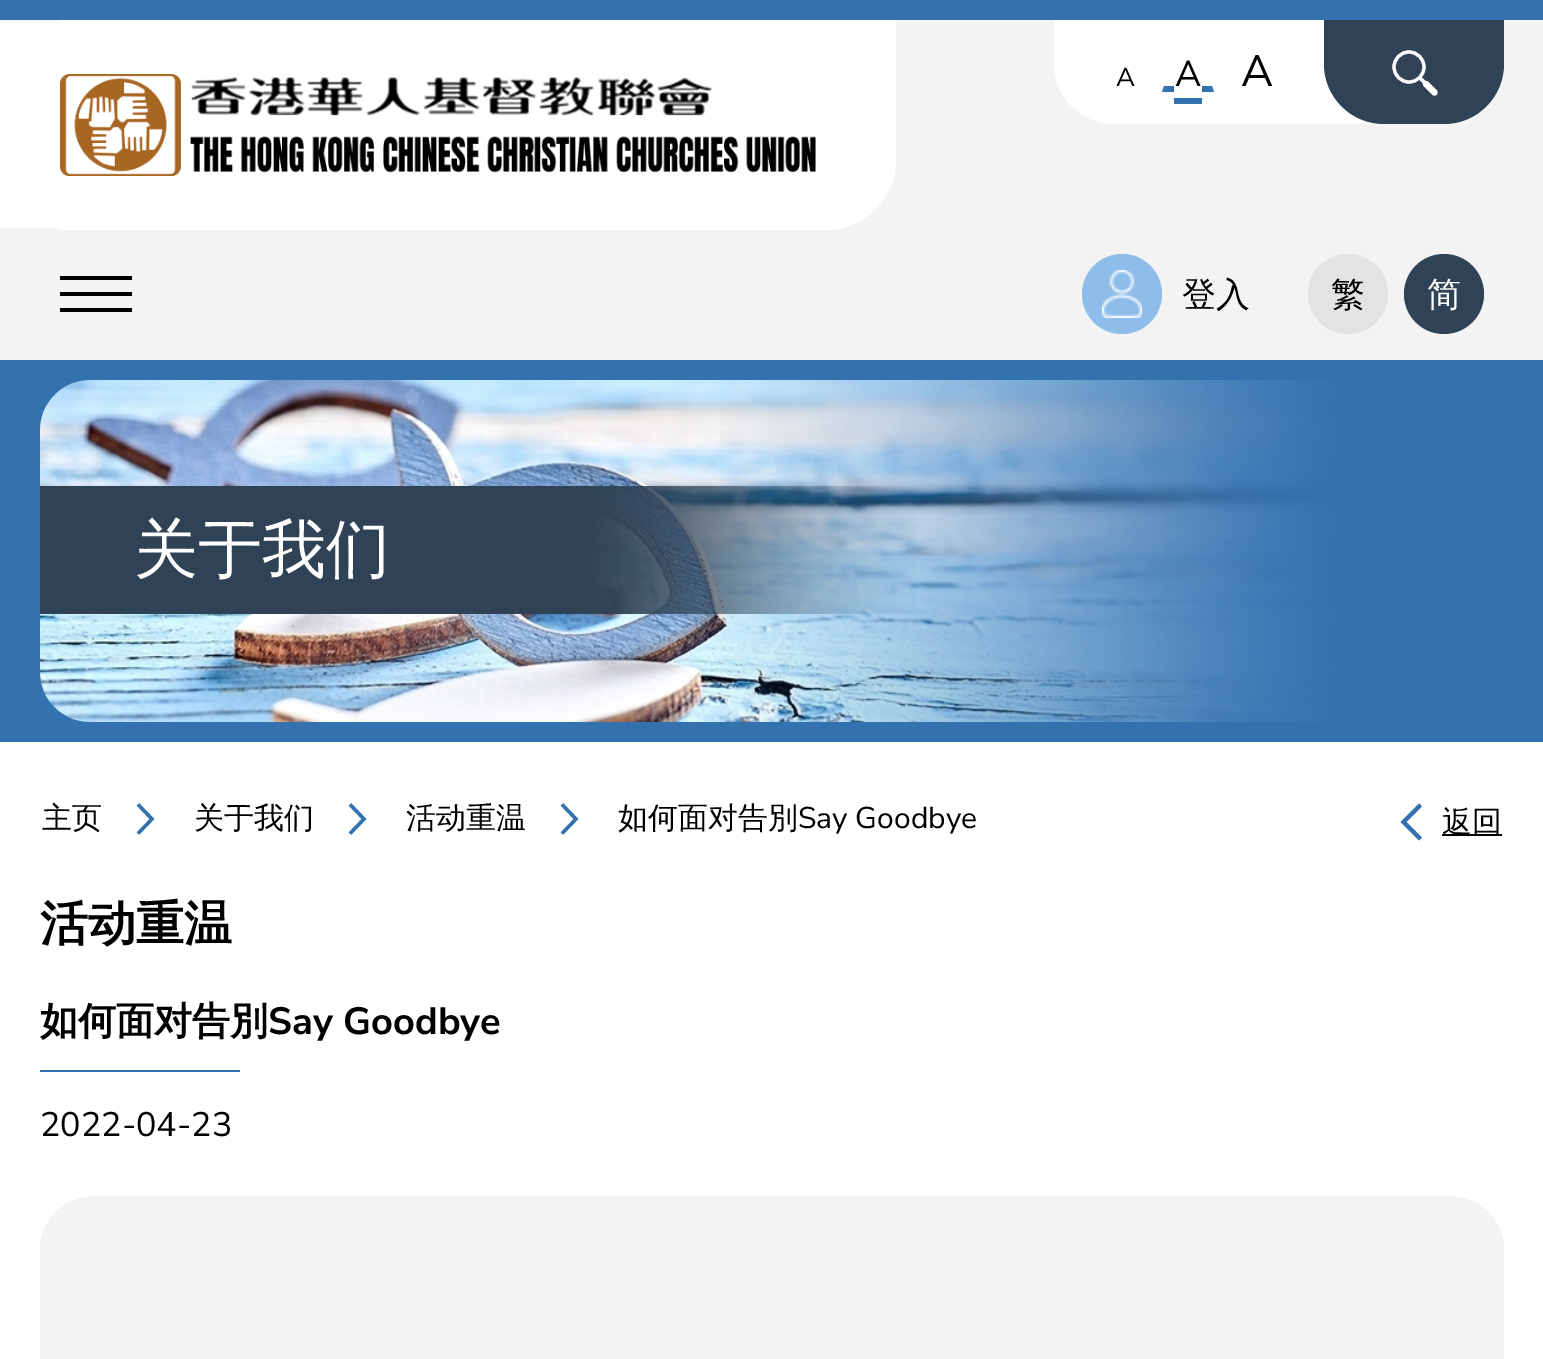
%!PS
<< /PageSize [1543 1359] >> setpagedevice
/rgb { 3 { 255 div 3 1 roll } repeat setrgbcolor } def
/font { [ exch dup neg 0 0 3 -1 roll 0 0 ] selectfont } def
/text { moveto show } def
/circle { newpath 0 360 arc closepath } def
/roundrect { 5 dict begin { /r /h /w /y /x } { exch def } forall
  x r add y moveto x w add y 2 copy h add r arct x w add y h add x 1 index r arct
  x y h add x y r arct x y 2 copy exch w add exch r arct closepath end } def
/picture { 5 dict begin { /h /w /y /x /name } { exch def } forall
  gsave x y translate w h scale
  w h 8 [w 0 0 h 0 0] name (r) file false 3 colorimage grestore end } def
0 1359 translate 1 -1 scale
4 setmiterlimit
255 255 255 rgb
0 0 1543 1359 rectfill
243 243 243 rgb
0 20 1543 340 rectfill
51 113 175 rgb
0 0 1543 20 rectfill
255 255 255 rgb
58 20 moveto 838 0 rlineto 0 140 rlineto 0 38.5 -31.5 70 -70 70 rcurveto -768 0 rlineto closepath fill
(img_01.rgb) 60 74 756 102 picture
0 22 58 206 rectfill
1054 20 moveto 450 0 rlineto 0 44 rlineto 0 33 -27 60 -60 60 rcurveto -330 0 rlineto -33 0 -60 -27 -60 -60 rcurveto closepath fill
51 113 175 rgb
1174 92 moveto -12 0 rlineto 2 -6 rlineto 10 0 rlineto closepath fill
1174 98 28 6 rectfill
1214 92 moveto -12 0 rlineto 0 -6 rlineto 10 0 rlineto closepath fill
48 67 86 rgb
1324 20 moveto 180 0 rlineto 0 44 rlineto 0 33 -27 60 -60 60 rcurveto -60 0 rlineto -33 0 -60 -27 -60 -60 rcurveto closepath fill
255 255 255 rgb
3.2 setlinewidth
1409 67 15 circle stroke
1420 78 moveto 6 6 rlineto stroke
6.3 setlinewidth
1 setlinecap
1434.5 92.5 moveto -8.5 -8.5 rlineto stroke
(img_02.rgb) 60 276 72 36 picture
143 189 234 rgb
1122 294 40 circle fill
(img_03.rgb) 1102 270 40 48 picture
227 227 227 rgb
1348 294 40 circle fill
48 67 86 rgb
1444 294 40 circle fill
51 113 175 rgb
0 360 1543 382 rectfill
(img_04.rgb) 40 380 1302 342 picture
48 67 86 rgb
40 486 540 128 rectfill
(img_05.rgb) 580 486 336 128 picture
(img_06.rgb) 720 380 784 342 picture
51 113 175 rgb
3.4 setlinewidth
0 setlinecap
138 804.5 moveto 14 14.5 rlineto -14 14.5 rlineto stroke
350 804.5 moveto 14 14.5 rlineto -14 14.5 rlineto stroke
562 804.5 moveto 14 14.5 rlineto -14 14.5 rlineto stroke
4 setlinewidth
1420.5 805 moveto -17 17 rlineto 17 17 rlineto stroke
0 0 0 rgb
1442 834 60 2 rectfill
51 113 175 rgb
40 1070 200 2 rectfill
243 243 243 rgb
40 1196 1464 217 54 roundrect fill
/NunitoSans-Regular 26 font
0 0 0 rgb
(A) 1116 86 text
/NunitoSans-Regular 36 font
(A) 1175 86 text
/NunitoSans-Regular 44 font
(A) 1241 86 text
/WenQuanYiZenHei-Medium 34 font
(登入) 1182 306 text
(繁) 1331 306 text
255 255 255 rgb
(简) 1427 306 text
/WenQuanYiZenHei-Medium 64 font
(关于我们) 134 571 text
/WenQuanYiZenHei-Medium 30 font
0 0 0 rgb
(主页) 42 828 text
(关于我们) 194 828 text
(活动重温) 406 828 text
(如何面对告別) 618 828 text
/NunitoSans-Regular 30 font
(Say Goodbye) 798 828 text
/WenQuanYiZenHei-Medium 30 font
(返回) 1442 832 text
/WenQuanYiZenHei-Bold 48 font
(活动重温) 40 940 text
/WenQuanYiZenHei-Bold 38 font
(如何面对告別) 40 1034 text
/NunitoSans-Bold 38 font
(Say Goodbye) 268 1034 text
/NunitoSans-Regular 34 font
(2022-04-23) 40 1136 text
showpage
